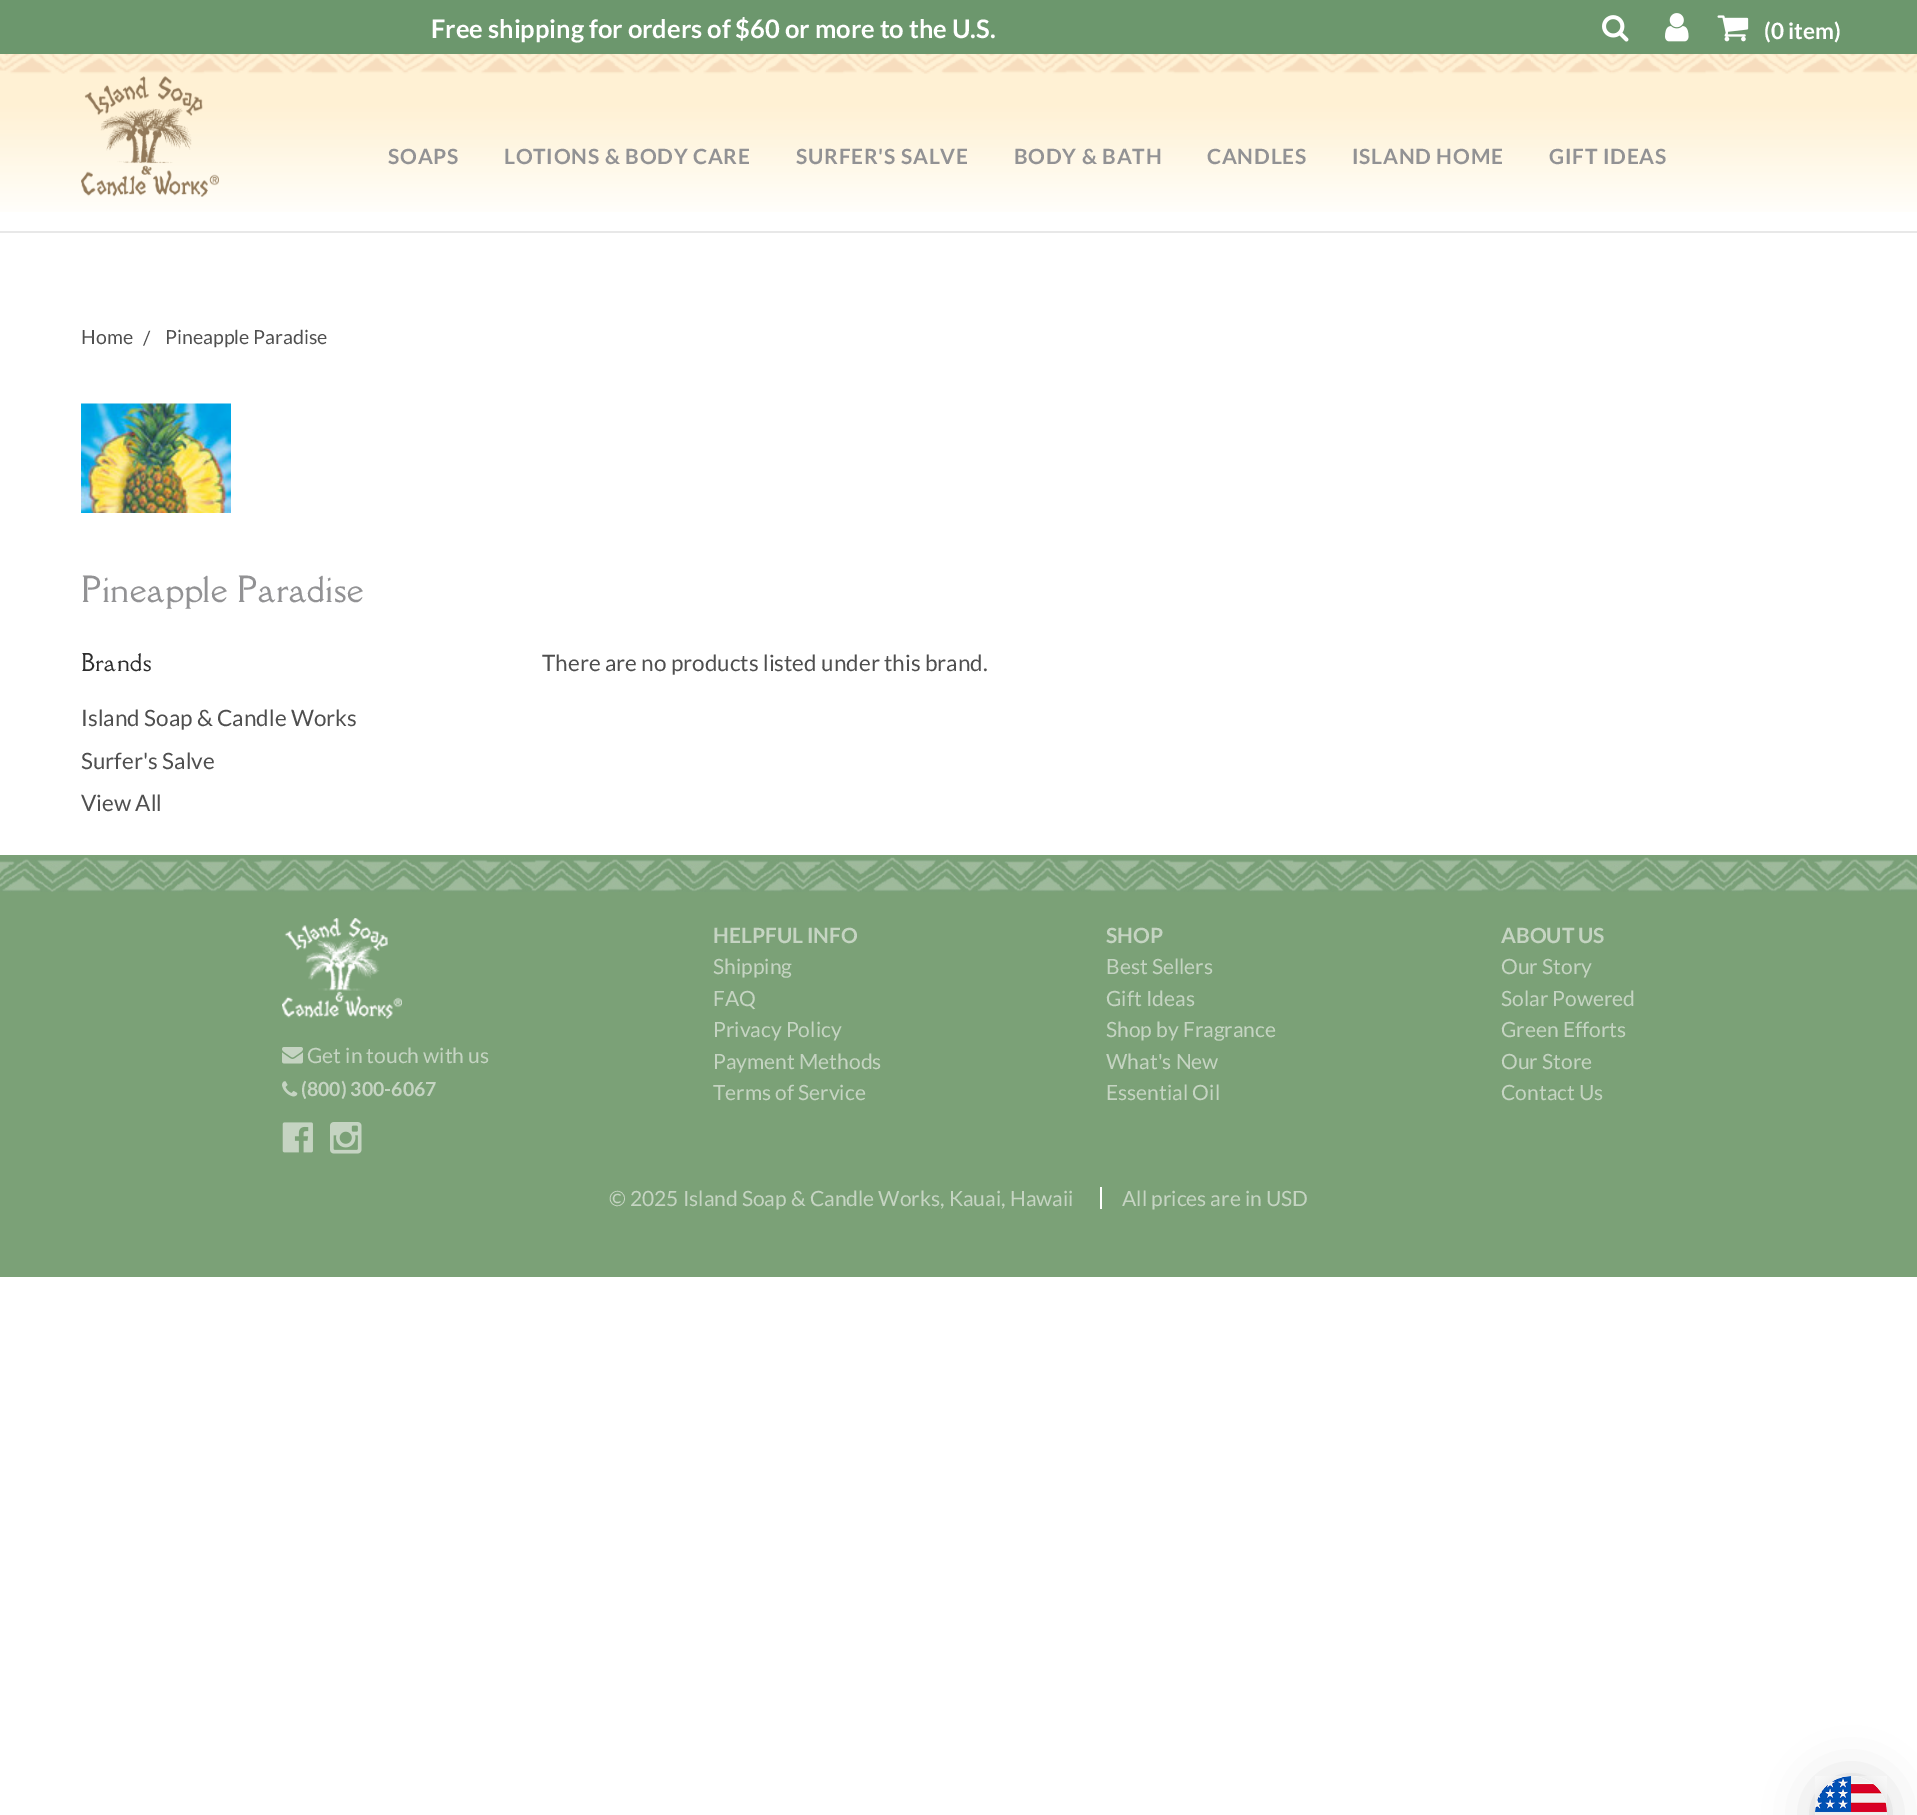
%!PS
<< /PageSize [1917 1815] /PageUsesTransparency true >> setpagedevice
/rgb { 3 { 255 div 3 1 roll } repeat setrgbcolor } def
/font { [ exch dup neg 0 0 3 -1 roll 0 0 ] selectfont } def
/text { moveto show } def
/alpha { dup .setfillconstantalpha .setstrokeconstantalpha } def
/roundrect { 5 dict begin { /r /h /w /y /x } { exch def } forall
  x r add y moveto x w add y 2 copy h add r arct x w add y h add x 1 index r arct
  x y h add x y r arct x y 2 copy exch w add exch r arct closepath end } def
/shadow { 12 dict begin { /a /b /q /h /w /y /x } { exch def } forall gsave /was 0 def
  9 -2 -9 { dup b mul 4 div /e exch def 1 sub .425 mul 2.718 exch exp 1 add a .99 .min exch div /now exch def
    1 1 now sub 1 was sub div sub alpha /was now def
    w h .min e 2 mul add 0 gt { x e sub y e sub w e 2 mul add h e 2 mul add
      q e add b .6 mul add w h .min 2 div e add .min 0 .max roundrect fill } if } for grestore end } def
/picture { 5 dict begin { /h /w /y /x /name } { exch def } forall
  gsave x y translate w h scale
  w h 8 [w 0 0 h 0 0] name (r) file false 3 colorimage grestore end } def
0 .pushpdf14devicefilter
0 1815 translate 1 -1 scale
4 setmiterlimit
255 255 255 rgb
0 0 1917 1815 rectfill
(img_01.rgb) 0 54 1917 158 picture
232 232 232 rgb
0 231 1917 2 rectfill
108 151 109 rgb
0 0 1917 54 rectfill
(img_02.rgb) 1602 15 27 27 picture
(img_03.rgb) 1665 13 24 29 picture
(img_04.rgb) 1717 15 32 27 picture
(img_05.rgb) 81 76 138 121 picture
(img_06.rgb) 81 403 150 110 picture
123 161 119 rgb
0 855 1917 422 rectfill
(img_07.rgb) 0 857 1917 35 picture
(img_08.rgb) 282 918 120 101 picture
(img_09.rgb) 282 1047 21 17 picture
(img_10.rgb) 282 1081 16 16 picture
(img_11.rgb) 282 1122 31 31 picture
(img_12.rgb) 330 1122 32 32 picture
255 255 255 rgb
1100 1187 2 22 rectfill
0 0 0 rgb
1815 1779 72 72 36 24 0.16 shadow
1815 1778 72 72 36 4.5 0.06 shadow
(img_13.rgb) 1815 1776 72 39 picture
/Lato-Bold 25.5 font
255 255 255 rgb
(Free shipping for orders of $60 or more to the U.S.) 431 38 text
/Lato-Bold 22.5 font
(\(0 item\)) 1764 39 text
/Lato-Bold 21 font
146 146 148 rgb
388 164 moveto 0.75 0 (SOAPS) ashow
504 164 moveto 0.75 0 (LOTIONS & BODY CARE) ashow
796 164 moveto 0.75 0 (SURFER'S SALVE) ashow
1014 164 moveto 0.75 0 (BODY & BATH) ashow
1207 164 moveto 0.75 0 (CANDLES) ashow
1352 164 moveto 0.75 0 (ISLAND HOME) ashow
1549 164 moveto 0.75 0 (GIFT IDEAS) ashow
/Lato-Regular 19.5 font
79 79 79 rgb
(Home) 81 344 text
(/) 143 345 text
(Pineapple Paradise) 165 344 text
/DellaRespira-Regular 33 font
146 146 148 rgb
81 602 moveto 0.4 0 (Pineapple Paradise) ashow
/DellaRespira-Regular 22.5 font
45 45 45 rgb
81 671 moveto 0.4 0 (Brands) ashow
/Lato-Regular 22.5 font
79 79 79 rgb
(Island Soap & Candle Works) 81 726 text
(Surfer's Salve) 81 769 text
(View All) 81 811 text
(There are no products listed under this brand.) 542 671 text
/Lato-Regular 21 font
197 212 194 rgb
(Get in touch with us) 307 1063 text
/Lato-Bold 19.5 font
(\(800\) 300-6067) 301 1096 text
/Lato-Bold 21 font
(HELPFUL INFO) 713 943 text
/Lato-Regular 21 font
(Shipping) 713 974 text
(FAQ) 713 1006 text
(Privacy Policy) 713 1037 text
(Payment Methods) 713 1069 text
(Terms of Service) 713 1100 text
/Lato-Bold 21 font
(SHOP) 1106 943 text
/Lato-Regular 21 font
(Best Sellers) 1106 974 text
(Gift Ideas) 1106 1006 text
(Shop by Fragrance) 1106 1037 text
(What's New) 1106 1069 text
(Essential Oil) 1106 1100 text
/Lato-Bold 21 font
(ABOUT US) 1501 943 text
/Lato-Regular 21 font
(Our Story) 1501 974 text
(Solar Powered) 1501 1006 text
(Green Efforts) 1501 1037 text
(Our Store) 1501 1069 text
(Contact Us) 1501 1100 text
(© 2025 Island Soap & Candle Works, Kauai, Hawaii) 609 1206 text
(All prices are in USD) 1122 1206 text
.poppdf14devicefilter showpage
